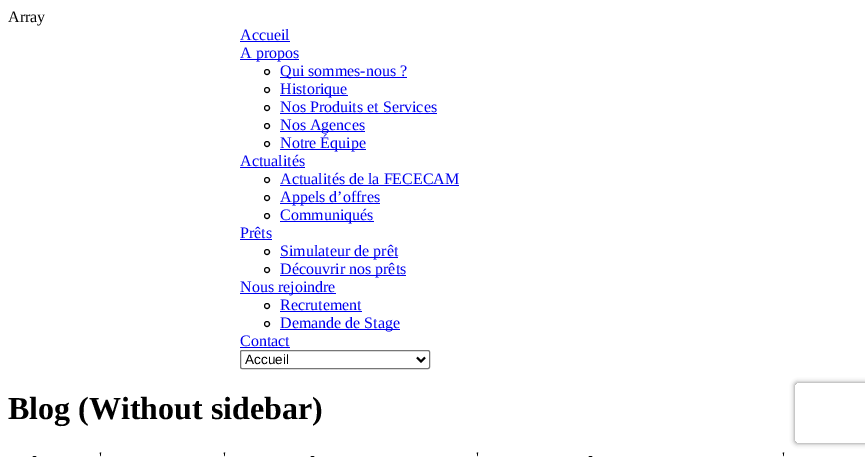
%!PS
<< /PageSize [865 457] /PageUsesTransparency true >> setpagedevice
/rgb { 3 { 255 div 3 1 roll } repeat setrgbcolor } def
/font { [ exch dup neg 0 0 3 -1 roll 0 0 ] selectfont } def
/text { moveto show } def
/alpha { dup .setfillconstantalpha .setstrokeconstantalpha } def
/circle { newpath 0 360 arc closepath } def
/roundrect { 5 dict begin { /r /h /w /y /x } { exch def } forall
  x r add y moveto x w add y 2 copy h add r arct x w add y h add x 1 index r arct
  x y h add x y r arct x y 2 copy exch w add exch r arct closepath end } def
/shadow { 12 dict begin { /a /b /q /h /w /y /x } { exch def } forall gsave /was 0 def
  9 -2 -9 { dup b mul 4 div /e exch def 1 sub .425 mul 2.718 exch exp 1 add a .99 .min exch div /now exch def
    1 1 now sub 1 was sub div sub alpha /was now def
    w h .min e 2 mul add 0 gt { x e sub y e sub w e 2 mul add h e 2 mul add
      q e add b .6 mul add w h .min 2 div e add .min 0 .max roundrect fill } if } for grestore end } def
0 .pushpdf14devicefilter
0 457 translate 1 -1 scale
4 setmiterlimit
255 255 255 rgb
0 0 865 457 rectfill
0 0 238 rgb
240 41 50 1 rectfill
240 59 59 1 rectfill
0 0 0 rgb
267 72 2.5 circle stroke
0 0 238 rgb
280 77 127 1 rectfill
0 0 0 rgb
267 90 2.5 circle stroke
0 0 238 rgb
280 95 68 1 rectfill
0 0 0 rgb
267 108 2.5 circle stroke
0 0 238 rgb
280 113 157 1 rectfill
0 0 0 rgb
267 126 2.5 circle stroke
0 0 238 rgb
280 131 85 1 rectfill
0 0 0 rgb
267 144 2.5 circle stroke
0 0 238 rgb
280 149 86 1 rectfill
240 167 65 1 rectfill
0 0 0 rgb
267 180 2.5 circle stroke
0 0 238 rgb
280 185 179 1 rectfill
0 0 0 rgb
267 198 2.5 circle stroke
0 0 238 rgb
280 203 100 1 rectfill
0 0 0 rgb
267 216 2.5 circle stroke
0 0 238 rgb
280 221 94 1 rectfill
240 239 32 1 rectfill
0 0 0 rgb
267 252 2.5 circle stroke
0 0 238 rgb
280 257 118 1 rectfill
0 0 0 rgb
267 270 2.5 circle stroke
0 0 238 rgb
280 275 126 1 rectfill
240 293 96 1 rectfill
0 0 0 rgb
267 306 2.5 circle stroke
0 0 238 rgb
280 311 82 1 rectfill
0 0 0 rgb
267 324 2.5 circle stroke
0 0 238 rgb
280 329 120 1 rectfill
240 347 50 1 rectfill
118 118 118 rgb
240.5 350.5 189 18 1.5 roundrect stroke
0 0 0 rgb
2 setlinewidth
417 357.5 moveto 4 4 rlineto 4 -4 rlineto stroke
gsave
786 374 moveto 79 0 rlineto 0 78 rlineto -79 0 rlineto closepath 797 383 moveto 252 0 rlineto 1 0 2 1 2 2 rcurveto 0 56 rlineto 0 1 -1 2 -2 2 rcurveto -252 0 rlineto -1 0 -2 -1 -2 -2 rcurveto 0 -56 rlineto 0 -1 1 -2 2 -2 rcurveto closepath eoclip newpath
128 128 128 rgb
795 383 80 60 2 2.5 1 shadow
grestore
32 456 5 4 2.5 roundrect fill
310 456 5 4 2.5 roundrect fill
588 456 5 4 2.5 roundrect fill
/LiberationSerif-Regular 16 font
(Array) 8 22 text
0 0 238 rgb
(Accueil) 240 40 text
(A propos) 240 58 text
(Qui sommes-nous ?) 280 76 text
(Historique) 280 94 text
(Nos Produits et Services) 280 112 text
(Nos Agences) 280 130 text
(Notre Équipe) 280 148 text
(Actualités) 240 166 text
(Actualités de la FECECAM) 280 184 text
(Appels d’offres) 280 202 text
(Communiqués) 280 220 text
(Prêts) 240 238 text
(Simulateur de prêt) 280 256 text
(Découvrir nos prêts) 280 274 text
(Nous rejoindre) 240 292 text
(Recrutement) 280 310 text
(Demande de Stage) 280 328 text
(Contact) 240 346 text
/LiberationSans-Regular 13.5 font
0 0 0 rgb
(Accueil) 245 364 text
/LiberationSerif-Bold 32 font
(Blog \(Without sidebar\)) 8 419 text
/LiberationSerif-Regular 16 font
(') 99 463 text
(') 223 463 text
(') 476 463 text
(') 782 463 text
.poppdf14devicefilter showpage
